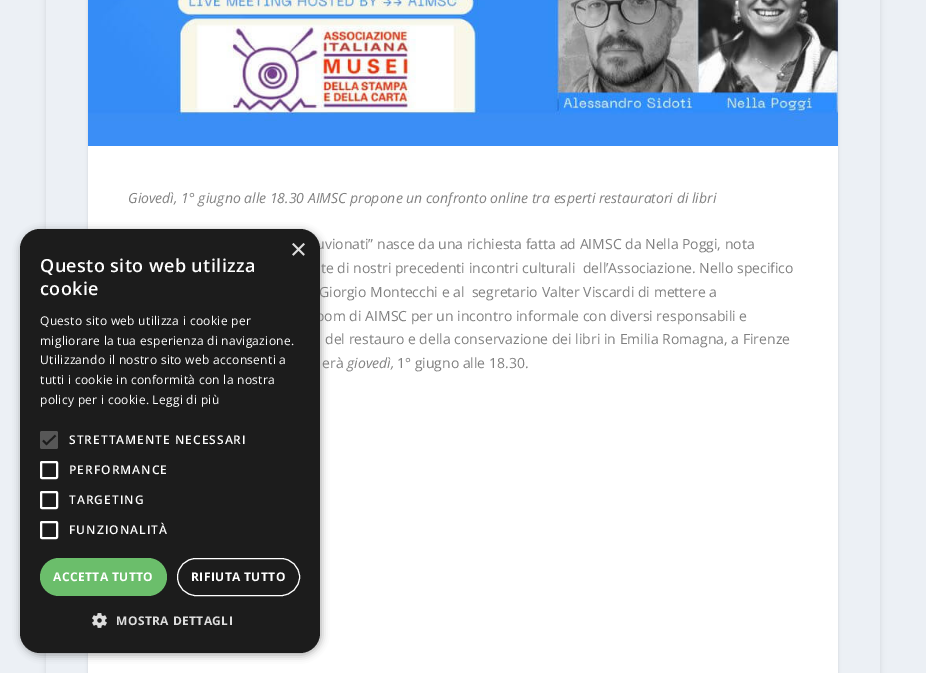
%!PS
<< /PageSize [926 673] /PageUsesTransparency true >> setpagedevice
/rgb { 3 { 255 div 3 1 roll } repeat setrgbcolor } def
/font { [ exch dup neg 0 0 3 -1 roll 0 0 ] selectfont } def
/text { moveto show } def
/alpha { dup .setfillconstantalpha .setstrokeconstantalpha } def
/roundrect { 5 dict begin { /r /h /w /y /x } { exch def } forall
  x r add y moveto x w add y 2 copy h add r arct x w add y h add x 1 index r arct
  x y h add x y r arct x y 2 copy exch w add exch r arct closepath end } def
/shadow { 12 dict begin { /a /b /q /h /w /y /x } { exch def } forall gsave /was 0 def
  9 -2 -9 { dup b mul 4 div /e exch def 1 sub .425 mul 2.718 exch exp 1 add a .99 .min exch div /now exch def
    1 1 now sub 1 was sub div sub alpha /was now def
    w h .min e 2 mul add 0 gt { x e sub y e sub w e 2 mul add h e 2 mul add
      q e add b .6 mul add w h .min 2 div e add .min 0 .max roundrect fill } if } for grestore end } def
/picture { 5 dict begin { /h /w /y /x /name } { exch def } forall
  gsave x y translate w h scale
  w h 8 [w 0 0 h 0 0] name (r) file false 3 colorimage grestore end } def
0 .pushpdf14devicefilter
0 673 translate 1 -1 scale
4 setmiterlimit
236 240 245 rgb
0 0 926 673 rectfill
gsave
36 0 moveto 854 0 rlineto 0 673 rlineto -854 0 rlineto closepath 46 -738 moveto 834 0 rlineto 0 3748 rlineto -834 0 rlineto closepath eoclip newpath
0 0 0 rgb
46 -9 834 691 0 3 0.1 shadow
grestore
0 0 0 rgb
88 -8 750 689 3 1.5 0.1 shadow
255 255 255 rgb
88 146 750 527 rectfill
(img_01.rgb) 88 0 750 146 picture
0 0 0 rgb
21 231 300 424 20 4 0.35 shadow
/OpenSans-Italic 14 font
128 128 128 rgb
(Giovedì, 1° giugno alle 18.30 AIMSC propone un confronto online tra esperti restauratori di libri) 128 203 text
/OpenSans-Regular 14 font
(uvionati” nasce da una richiesta fatta ad AIMSC da Nella Poggi, nota) 316 249 text
(te di nostri precedenti incontri culturali  dell’Associazione. Nello specifico) 321 273 text
(Giorgio Montecchi e al  segretario Valter Viscardi di mettere a) 319 297 text
(oom di AIMSC per un incontro informale con diversi responsabili e) 316 321 text
(del restauro e della conservazione dei libri in Emilia Romagna, a Firenze) 325 344 text
(erà) 322 368 text
/OpenSans-Italic 14 font
(giovedì,) 347 368 text
/OpenSans-Regular 14 font
(1° giugno alle 18.30.) 397 368 text
28 28 28 rgb
20 229 300 424 20 roundrect fill
/LiberationSans-Regular 29 font
221 221 221 rgb
(×) 290 259 text
/OpenSans-SemiBold 18 font
255 255 255 rgb
40 272 moveto 0.4 0 (Questo sito web utilizza) ashow
40 295 moveto 0.4 0 (cookie) ashow
/OpenSans-Regular 12 font
40 325 moveto 0.3 0 (Questo sito web utilizza i cookie per) ashow
40 345 moveto 0.3 0 (migliorare la tua esperienza di navigazione.) ashow
40 364 moveto 0.3 0 (Utilizzando il nostro sito web acconsenti a) ashow
40 384 moveto 0.3 0 (tutti i cookie in conformità con la nostra) ashow
40 404 moveto 0.3 0 (policy per i cookie. Leggi di più) ashow
87 87 87 rgb
40 431 18 18 2 roundrect fill
28 28 28 rgb
1.8 setlinewidth
43 440.5 moveto 3.5 3.5 rlineto 9 -8.5 rlineto stroke
/OpenSans-SemiBold 12 font
255 255 255 rgb
69 444 moveto 1 0 (STRETTAMENTE NECESSARI) ashow
2 setlinewidth
41 462 16 16 1 roundrect stroke
69 474 moveto 1 0 (PERFORMANCE) ashow
41 492 16 16 1 roundrect stroke
69 504 moveto 1 0 (TARGETING) ashow
41 522 16 16 1 roundrect stroke
69 534 moveto 1 0 (FUNZIONALITÀ) ashow
107 190 107 rgb
40 558 127 38 19 roundrect fill
/OpenSans-Bold 12 font
255 255 255 rgb
53 581 moveto 0.4 0 (ACCETTA TUTTO) ashow
1 setlinewidth
177.5 558.5 122 37 18.5 roundrect stroke
191 581 moveto 0.4 0 (RIFIUTA TUTTO) ashow
(img_02.rgb) 92 613 15 15 picture
221 221 221 rgb
116 625 moveto 0.4 0 (MOSTRA DETTAGLI) ashow
.poppdf14devicefilter showpage
